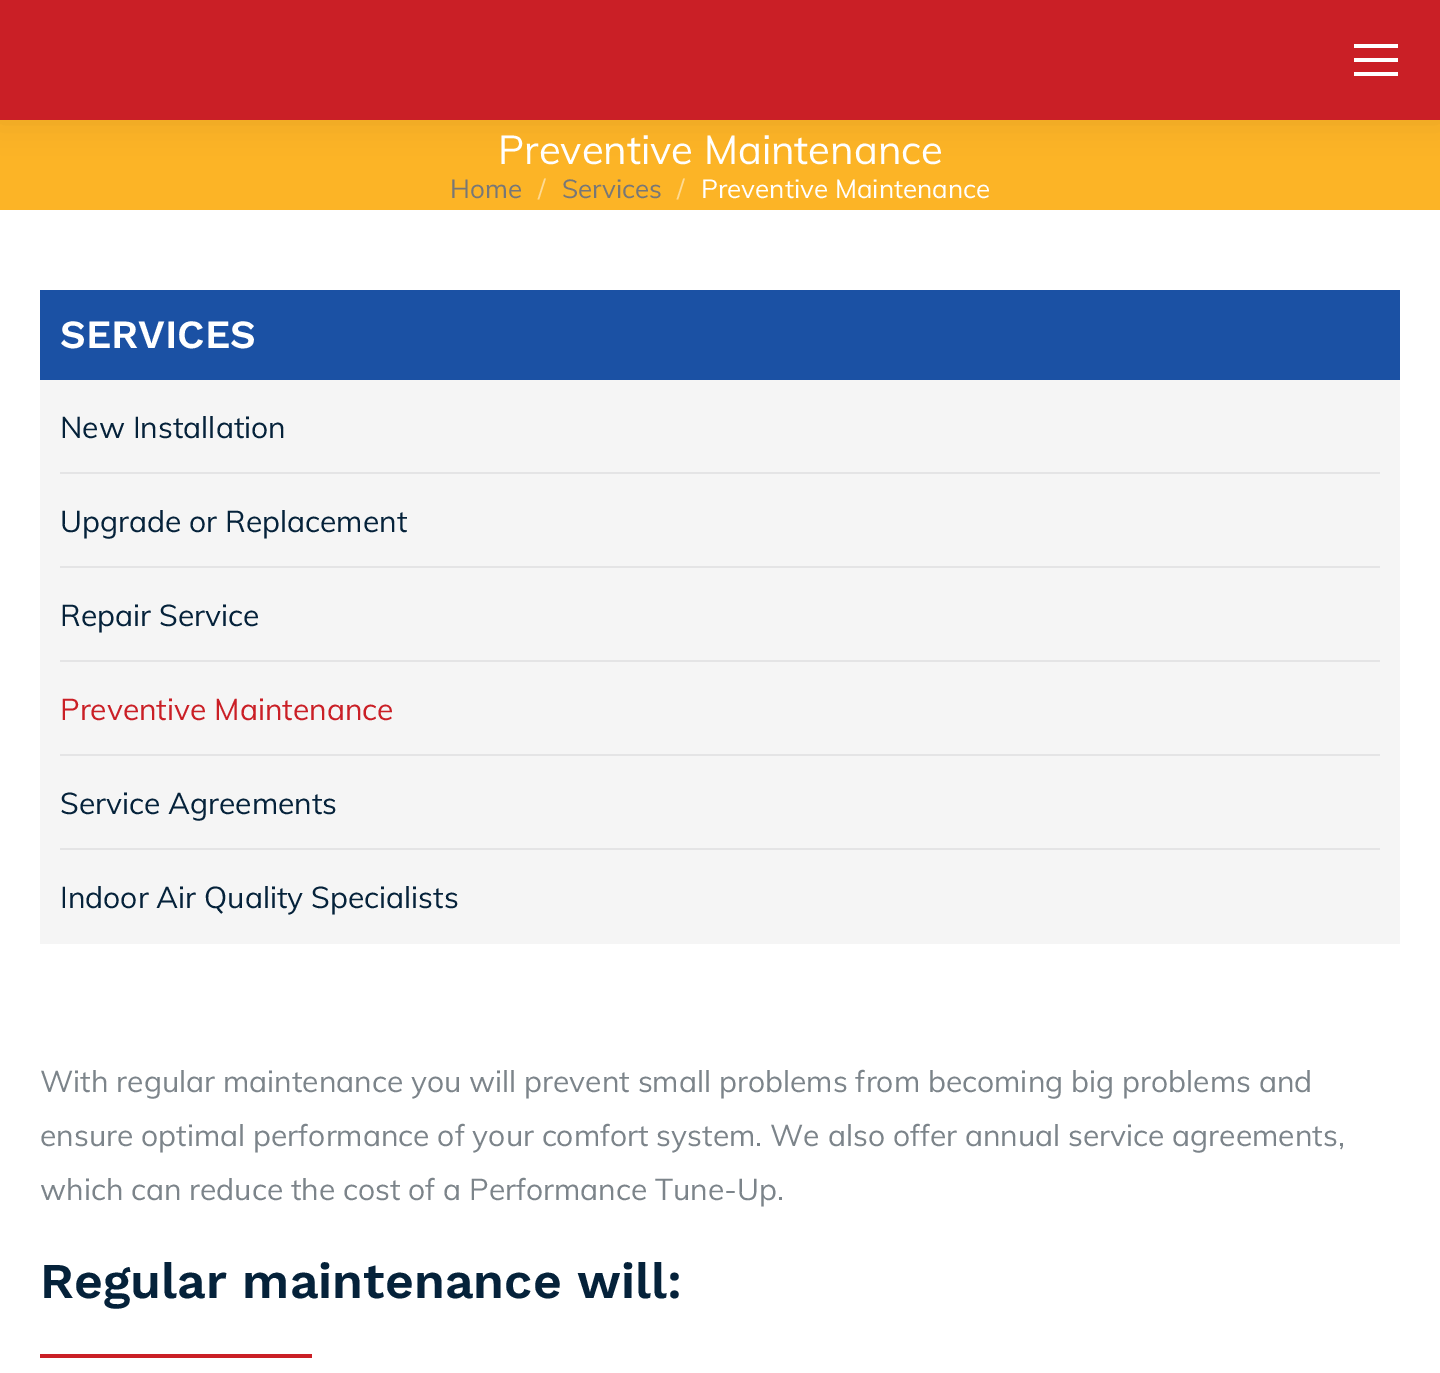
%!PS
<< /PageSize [1440 1373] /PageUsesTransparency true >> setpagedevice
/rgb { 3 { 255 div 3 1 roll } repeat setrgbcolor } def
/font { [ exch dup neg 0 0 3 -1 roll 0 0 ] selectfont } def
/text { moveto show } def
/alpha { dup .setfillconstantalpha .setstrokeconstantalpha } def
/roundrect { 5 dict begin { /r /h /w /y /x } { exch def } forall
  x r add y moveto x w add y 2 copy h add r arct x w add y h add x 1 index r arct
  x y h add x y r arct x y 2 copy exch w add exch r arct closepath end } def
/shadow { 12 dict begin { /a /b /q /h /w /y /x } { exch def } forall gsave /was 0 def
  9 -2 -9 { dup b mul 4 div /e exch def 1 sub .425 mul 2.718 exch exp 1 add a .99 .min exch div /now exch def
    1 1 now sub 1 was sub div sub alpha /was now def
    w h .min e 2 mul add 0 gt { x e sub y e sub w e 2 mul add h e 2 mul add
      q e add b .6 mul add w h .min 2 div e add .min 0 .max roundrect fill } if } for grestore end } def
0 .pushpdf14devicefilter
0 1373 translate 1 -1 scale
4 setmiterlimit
255 255 255 rgb
0 0 1440 1373 rectfill
252 180 38 rgb
0 120 1440 90 rectfill
0 0 0 rgb
-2 -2 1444 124 0 15 0.07 shadow
202 31 38 rgb
0 0 1440 120 rectfill
255 255 255 rgb
1354 58 44 4 rectfill
1354 44 44 4 rectfill
1354 72 44 4 rectfill
27 81 164 rgb
40 290 1360 90 rectfill
245 245 245 rgb
40 380 1360 564 rectfill
228 228 229 rgb
60 472 1320 2 rectfill
60 566 1320 2 rectfill
60 660 1320 2 rectfill
60 754 1320 2 rectfill
60 848 1320 2 rectfill
202 31 38 rgb
40 1354 272 4 rectfill
/Muli-Regular 40 font
255 255 255 rgb
(Preventive Maintenance) 498 164 text
/Muli-Regular 26 font
119 119 119 rgb
(Home) 450 198 text
254 218 147 rgb
(/) 538 198 text
119 119 119 rgb
(Services) 562 198 text
254 218 147 rgb
(/) 677 198 text
255 255 255 rgb
(Preventive Maintenance) 701 198 text
/WorkSans-SemiBold 40 font
(SERVICES) 60 348 text
/Muli-Regular 30 font
5 34 58 rgb
(New Installation) 60 438 text
(Upgrade or Replacement) 60 532 text
(Repair Service) 60 626 text
202 31 38 rgb
(Preventive Maintenance) 60 720 text
5 34 58 rgb
(Service Agreements) 60 814 text
(Indoor Air Quality Specialists) 60 908 text
124 132 138 rgb
(With regular maintenance you will prevent small problems from becoming big problems and) 40 1092 text
(ensure optimal performance of your comfort system. We also offer annual service agreements,) 40 1146 text
(which can reduce the cost of a Performance Tune-Up.) 40 1200 text
/WorkSans-SemiBold 50 font
5 34 58 rgb
(Regular maintenance will:) 40 1298 text
.poppdf14devicefilter showpage
